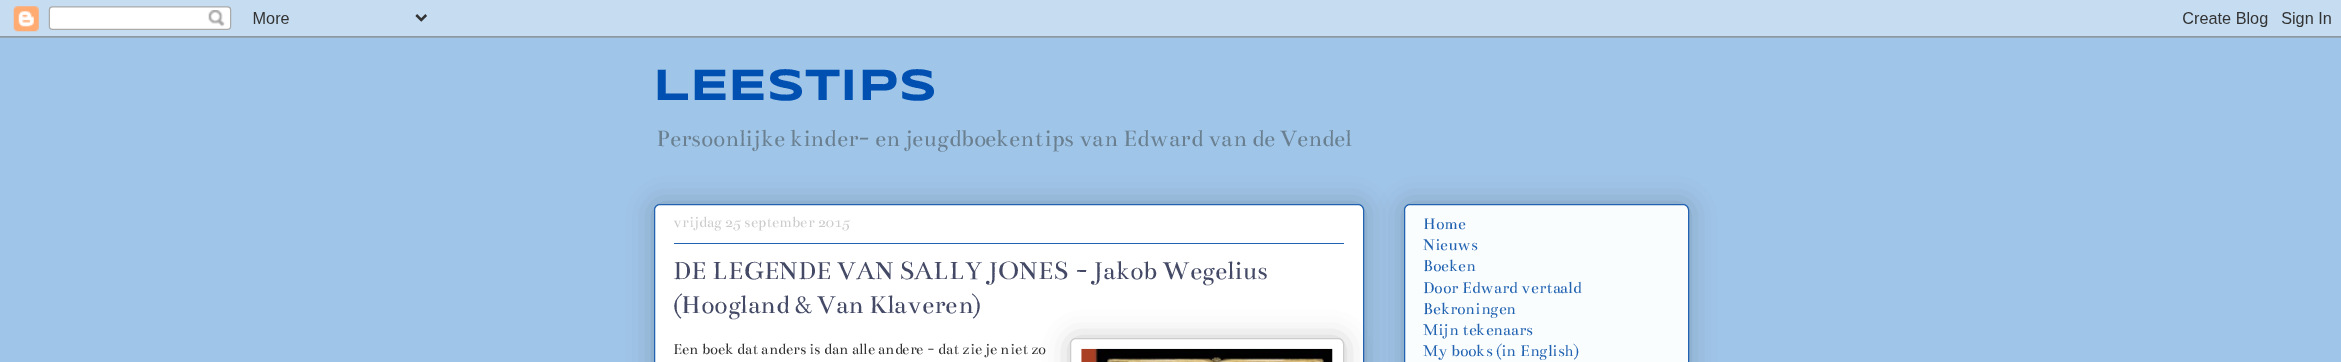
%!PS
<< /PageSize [2341 362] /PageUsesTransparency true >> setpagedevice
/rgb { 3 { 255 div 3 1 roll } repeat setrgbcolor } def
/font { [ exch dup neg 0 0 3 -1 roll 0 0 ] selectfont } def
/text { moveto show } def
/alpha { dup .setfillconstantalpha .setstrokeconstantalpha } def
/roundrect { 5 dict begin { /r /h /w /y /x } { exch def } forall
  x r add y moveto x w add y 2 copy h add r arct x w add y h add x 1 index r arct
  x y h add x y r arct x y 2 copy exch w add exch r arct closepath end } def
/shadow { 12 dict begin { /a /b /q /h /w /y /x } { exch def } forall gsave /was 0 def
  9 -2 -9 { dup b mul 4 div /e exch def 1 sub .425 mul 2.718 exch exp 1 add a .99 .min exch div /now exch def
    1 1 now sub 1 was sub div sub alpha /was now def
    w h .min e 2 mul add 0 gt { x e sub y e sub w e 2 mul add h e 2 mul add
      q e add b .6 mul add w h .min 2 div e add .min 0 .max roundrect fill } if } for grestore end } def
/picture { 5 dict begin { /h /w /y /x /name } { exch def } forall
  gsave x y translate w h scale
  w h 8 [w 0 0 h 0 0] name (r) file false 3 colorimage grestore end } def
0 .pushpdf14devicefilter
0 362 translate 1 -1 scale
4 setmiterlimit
159 197 232 rgb
0 0 2341 362 rectfill
(img_01.rgb) 0 0 2341 38 picture
0 0 0 rgb
654 204 710 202 6 12.5 0.2 shadow
255 255 255 rgb
654.5 204.5 709 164 5.5 roundrect gsave fill grestore
34 99 177 rgb
stroke
674 243 670 1 rectfill
0 0 0 rgb
1070 338 274 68 6 12.5 0.2 shadow
255 255 255 rgb
1070.5 338.5 273 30 5.5 roundrect gsave fill grestore
204 204 204 rgb
stroke
(img_02.rgb) 1081 348 252 14 picture
0 0 0 rgb
1404 204 285 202 6 12.5 0.2 shadow
250 253 254 rgb
1404.5 204.5 284 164 5.5 roundrect gsave fill grestore
34 99 177 rgb
stroke
/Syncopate-Bold 45 font
0 80 177 rgb
(LEESTIPS) 653 100 text
/Bentham-Regular 25 font
106 127 144 rgb
(Persoonlijke kinder- en jeugdboekentips van Edward van de Vendel) 656 146 text
/Bentham-Regular 16.25 font
204 204 204 rgb
(vrijdag 25 september 2015) 673 227 text
/Bentham-Regular 27.5 font
68 73 101 rgb
(DE LEGENDE VAN SALLY JONES - Jakob Wegelius) 673 279 text
(\(Hoogland & Van Klaveren\)) 673 313 text
/Bentham-Regular 16.25 font
51 51 51 rgb
(Een boek dat anders is dan alle andere - dat zie je niet zo) 673 354 text
/Bentham-Regular 17.5 font
34 99 177 rgb
(Home) 1423 229 text
(Nieuws) 1423 250 text
(Boeken) 1423 271 text
(Door Edward vertaald) 1423 293 text
(Bekroningen) 1423 314 text
(Mijn tekenaars) 1423 335 text
(My books \(in English\)) 1423 356 text
.poppdf14devicefilter showpage
